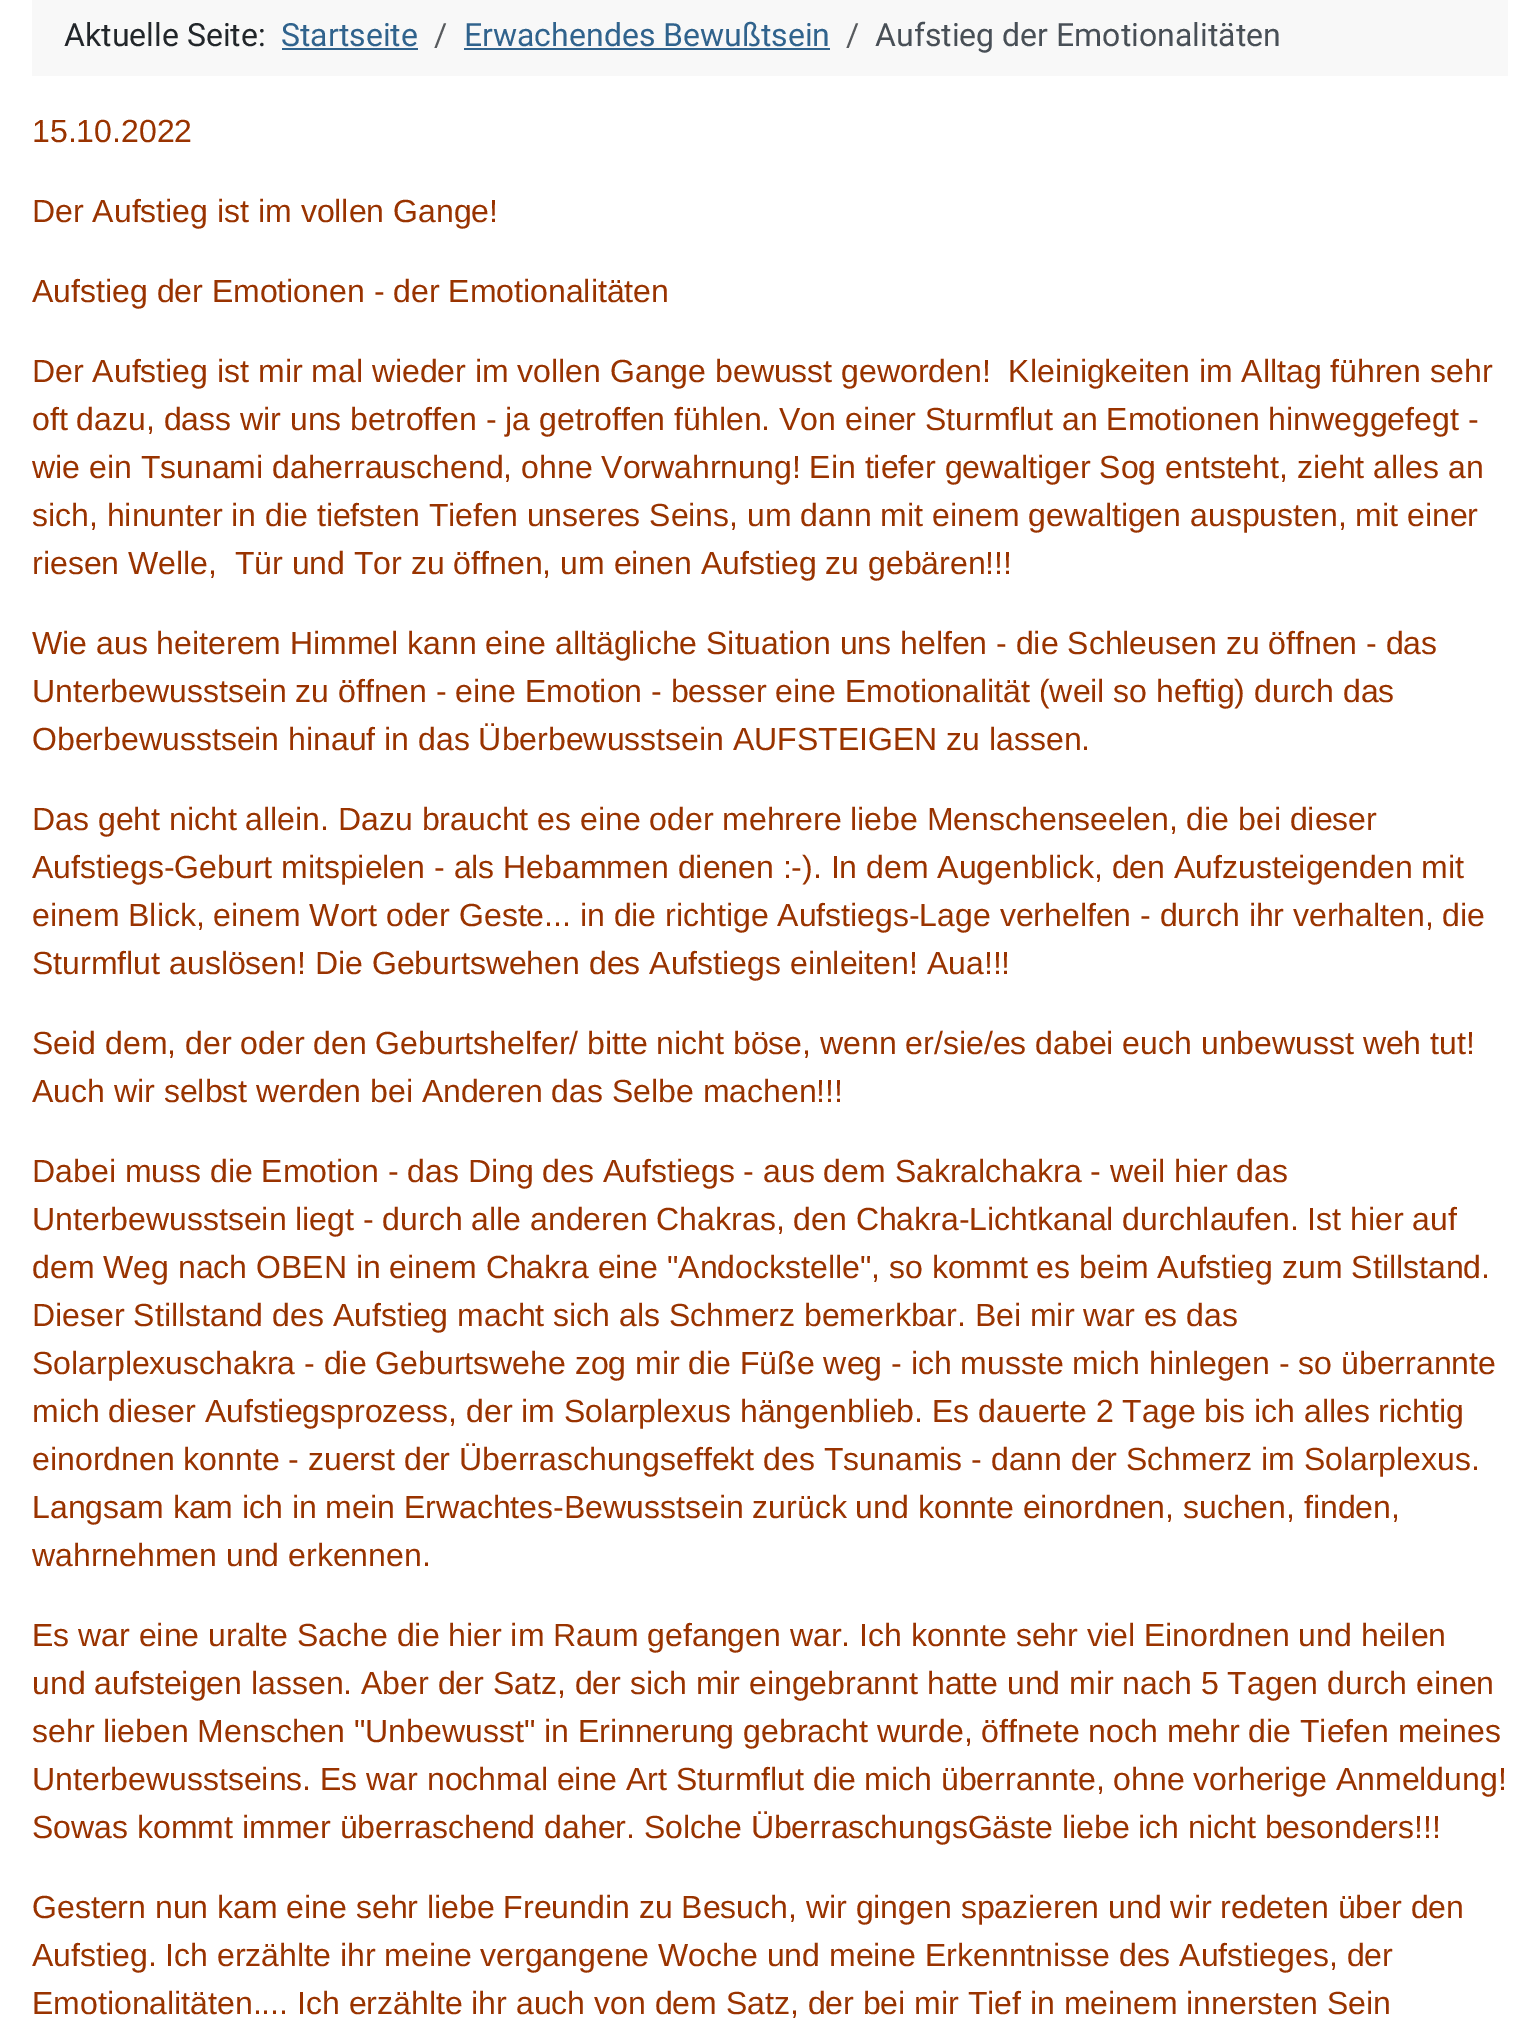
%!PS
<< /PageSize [1539 2018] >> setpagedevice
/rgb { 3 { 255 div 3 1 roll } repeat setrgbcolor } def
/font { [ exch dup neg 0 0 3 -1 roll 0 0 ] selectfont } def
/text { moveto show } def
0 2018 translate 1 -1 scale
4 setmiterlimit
255 255 255 rgb
0 0 1539 2018 rectfill
248 248 248 rgb
32 0 1476 76 rectfill
48 99 141 rgb
282 48 136 2 rectfill
464 48 366 2 rectfill
/Roboto-Regular 32 font
34 38 42 rgb
(Aktuelle Seite:) 64 46 text
48 99 141 rgb
(Startseite) 281 46 text
88 91 94 rgb
(/) 434 46 text
48 99 141 rgb
(Erwachendes Bewußtsein) 464 46 text
88 91 94 rgb
(/) 846 46 text
72 79 86 rgb
(Aufstieg der Emotionalitäten) 875 46 text
/LiberationSans-Regular 32 font
153 51 0 rgb
(15.10.2022) 32 142 text
(Der Aufstieg ist im vollen Gange!) 32 222 text
(Aufstieg der Emotionen - der Emotionalitäten) 32 302 text
(Der Aufstieg ist mir mal wieder im vollen Gange bewusst geworden!  Kleinigkeiten im Alltag führen sehr) 32 382 text
(oft dazu, dass wir uns betroffen - ja getroffen fühlen. Von einer Sturmflut an Emotionen hinweggefegt -) 32 430 text
(wie ein Tsunami daherrauschend, ohne Vorwahrnung! Ein tiefer gewaltiger Sog entsteht, zieht alles an) 32 478 text
(sich, hinunter in die tiefsten Tiefen unseres Seins, um dann mit einem gewaltigen auspusten, mit einer) 32 526 text
(riesen Welle,  Tür und Tor zu öffnen, um einen Aufstieg zu gebären!!!) 32 574 text
(Wie aus heiterem Himmel kann eine alltägliche Situation uns helfen - die Schleusen zu öffnen - das) 32 654 text
(Unterbewusstsein zu öffnen - eine Emotion - besser eine Emotionalität \(weil so heftig\) durch das) 32 702 text
(Oberbewusstsein hinauf in das Überbewusstsein AUFSTEIGEN zu lassen.) 32 750 text
(Das geht nicht allein. Dazu braucht es eine oder mehrere liebe Menschenseelen, die bei dieser) 32 830 text
(Aufstiegs-Geburt mitspielen - als Hebammen dienen :-\). In dem Augenblick, den Aufzusteigenden mit) 32 878 text
(einem Blick, einem Wort oder Geste... in die richtige Aufstiegs-Lage verhelfen - durch ihr verhalten, die) 32 926 text
(Sturmflut auslösen! Die Geburtswehen des Aufstiegs einleiten! Aua!!!) 32 974 text
(Seid dem, der oder den Geburtshelfer/ bitte nicht böse, wenn er/sie/es dabei euch unbewusst weh tut!) 32 1054 text
(Auch wir selbst werden bei Anderen das Selbe machen!!!) 32 1102 text
(Dabei muss die Emotion - das Ding des Aufstiegs - aus dem Sakralchakra - weil hier das) 32 1182 text
(Unterbewusstsein liegt - durch alle anderen Chakras, den Chakra-Lichtkanal durchlaufen. Ist hier auf) 32 1230 text
(dem Weg nach OBEN in einem Chakra eine "Andockstelle", so kommt es beim Aufstieg zum Stillstand.) 32 1278 text
(Dieser Stillstand des Aufstieg macht sich als Schmerz bemerkbar. Bei mir war es das) 32 1326 text
(Solarplexuschakra - die Geburtswehe zog mir die Füße weg - ich musste mich hinlegen - so überrannte) 32 1374 text
(mich dieser Aufstiegsprozess, der im Solarplexus hängenblieb. Es dauerte 2 Tage bis ich alles richtig) 32 1422 text
(einordnen konnte - zuerst der Überraschungseffekt des Tsunamis - dann der Schmerz im Solarplexus.) 32 1470 text
(Langsam kam ich in mein Erwachtes-Bewusstsein zurück und konnte einordnen, suchen, finden,) 32 1518 text
(wahrnehmen und erkennen.) 32 1566 text
(Es war eine uralte Sache die hier im Raum gefangen war. Ich konnte sehr viel Einordnen und heilen) 32 1646 text
(und aufsteigen lassen. Aber der Satz, der sich mir eingebrannt hatte und mir nach 5 Tagen durch einen) 32 1694 text
(sehr lieben Menschen "Unbewusst" in Erinnerung gebracht wurde, öffnete noch mehr die Tiefen meines) 32 1742 text
(Unterbewusstseins. Es war nochmal eine Art Sturmflut die mich überrannte, ohne vorherige Anmeldung!) 32 1790 text
(Sowas kommt immer überraschend daher. Solche ÜberraschungsGäste liebe ich nicht besonders!!!) 32 1838 text
(Gestern nun kam eine sehr liebe Freundin zu Besuch, wir gingen spazieren und wir redeten über den) 32 1918 text
(Aufstieg. Ich erzählte ihr meine vergangene Woche und meine Erkenntnisse des Aufstieges, der) 32 1966 text
(Emotionalitäten.... Ich erzählte ihr auch von dem Satz, der bei mir Tief in meinem innersten Sein) 32 2014 text
showpage
